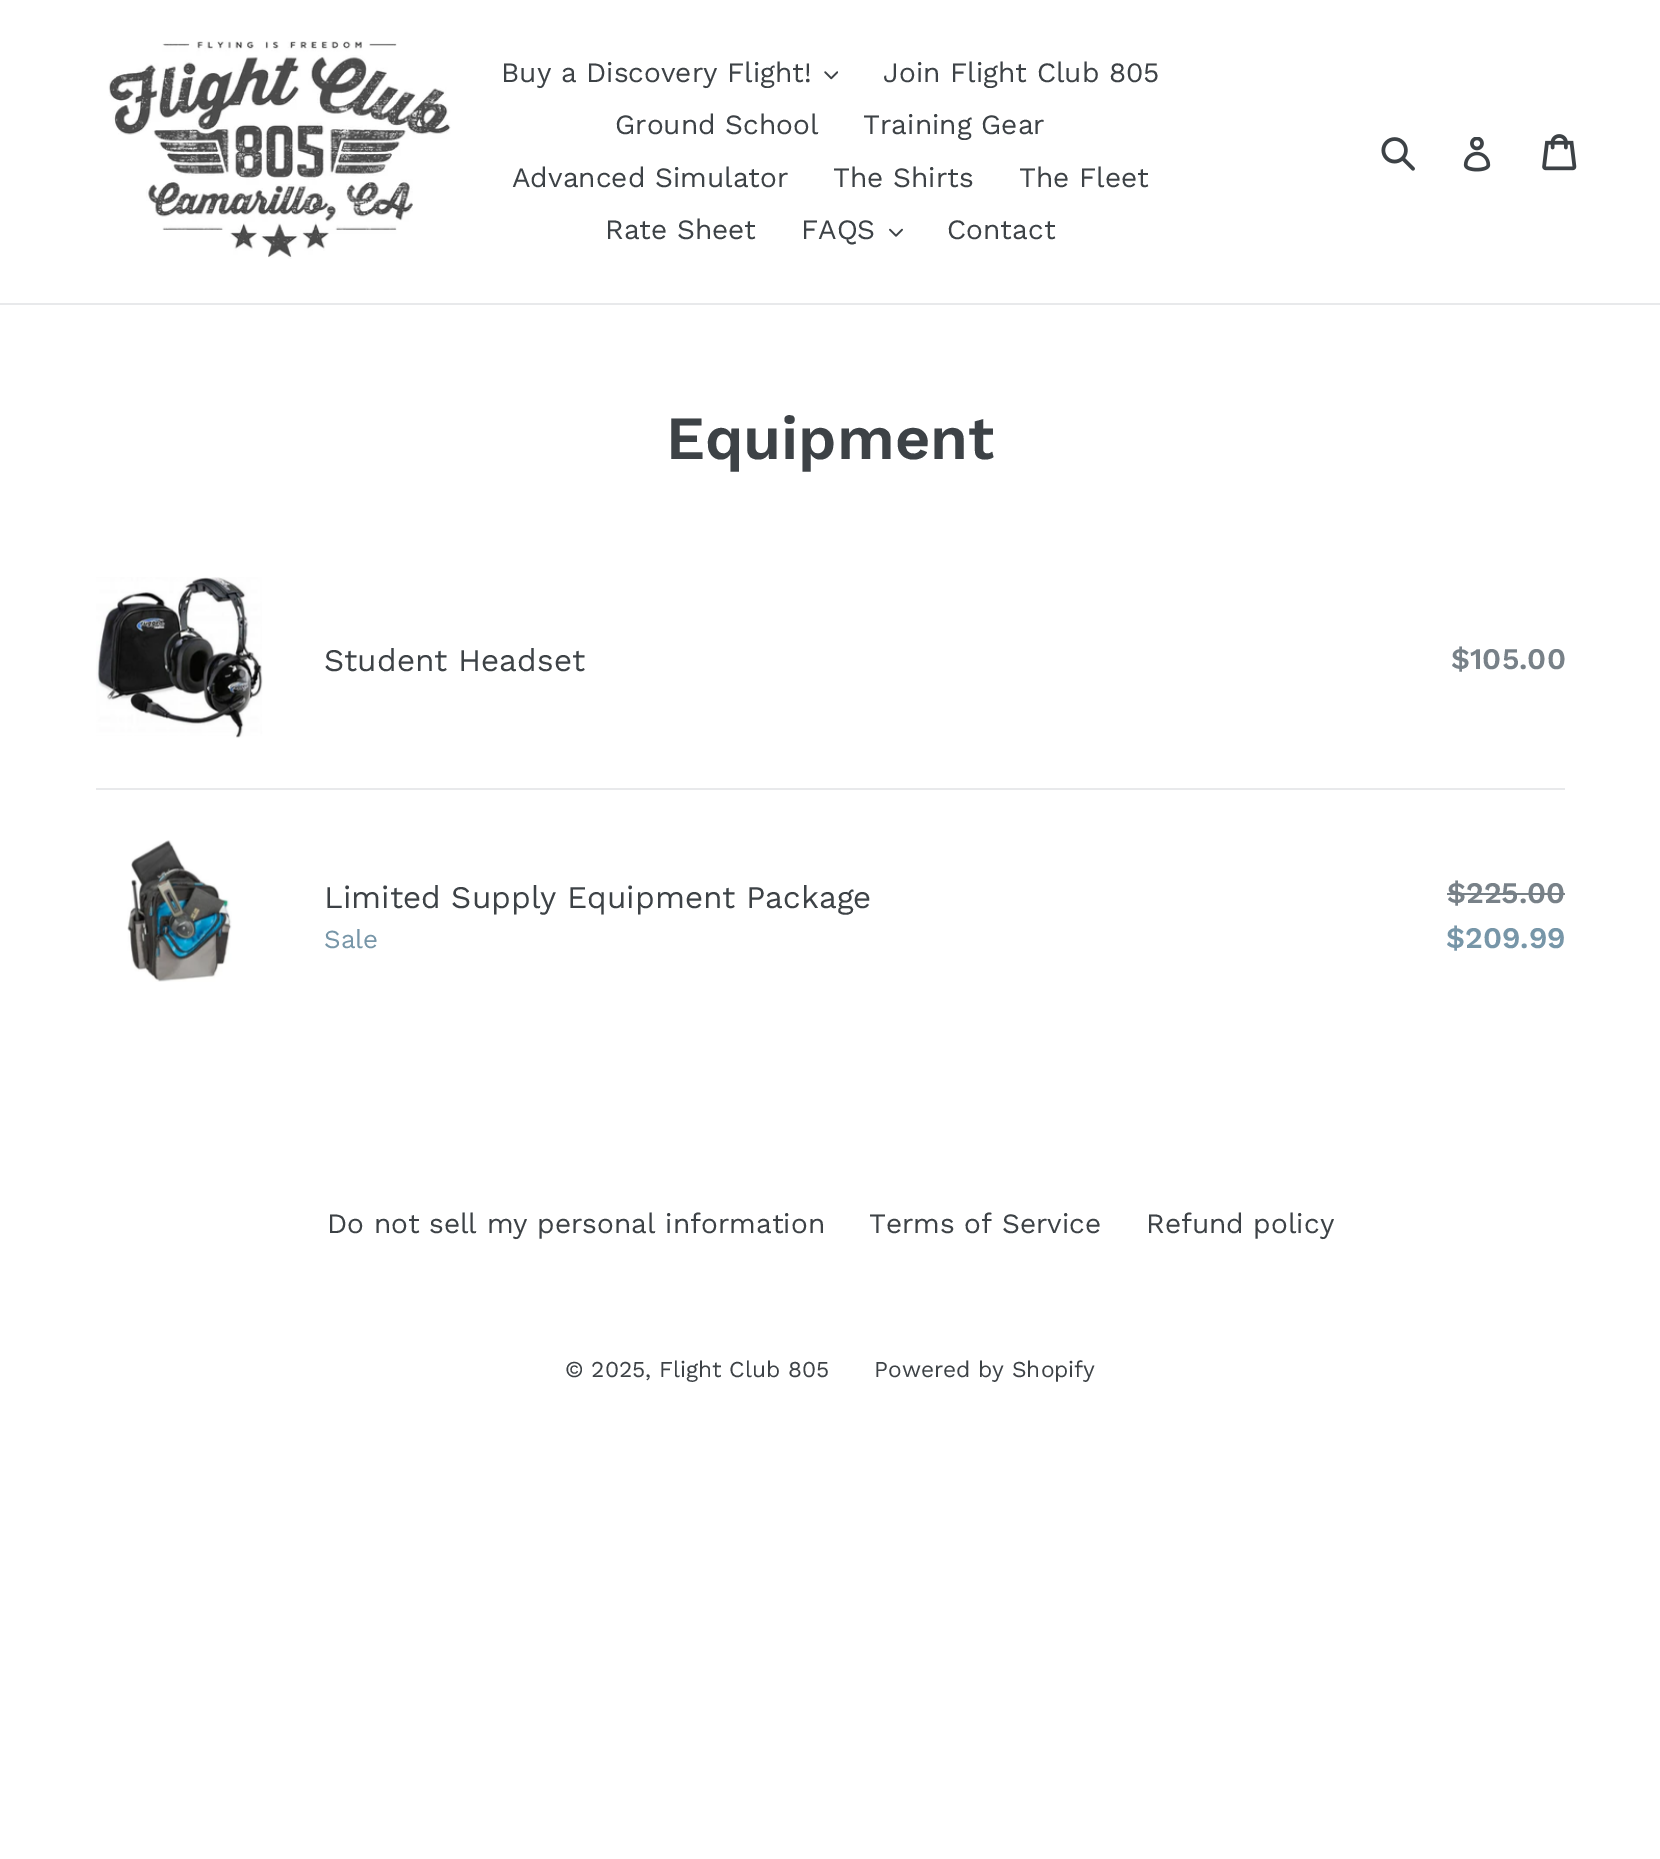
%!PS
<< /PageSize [1660 1859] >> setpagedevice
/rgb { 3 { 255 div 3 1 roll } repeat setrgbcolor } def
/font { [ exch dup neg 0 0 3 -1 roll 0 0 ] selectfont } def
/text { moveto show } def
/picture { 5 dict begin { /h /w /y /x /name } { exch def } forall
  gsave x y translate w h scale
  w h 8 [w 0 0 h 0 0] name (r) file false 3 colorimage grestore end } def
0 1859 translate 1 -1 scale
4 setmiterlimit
255 255 255 rgb
0 0 1660 1859 rectfill
232 233 235 rgb
0 303 1660 2 rectfill
(img_01.rgb) 108 41 343 218 picture
(img_02.rgb) 824 71 14 9 picture
(img_03.rgb) 889 228 14 9 picture
(img_04.rgb) 1381 137 34 34 picture
(img_05.rgb) 1463 137 28 35 picture
(img_06.rgb) 1542 134 35 37 picture
96 788 1469 2 rectfill
(img_07.rgb) 96 577 167 161 picture
(img_08.rgb) 127 840 105 142 picture
120 129 136 rgb
1447 893 118 2 rectfill
/WorkSans-Regular 28 font
61 66 70 rgb
(Buy a Discovery Flight!) 501 82 text
(Join Flight Club 805) 883 82 text
(Ground School) 615 134 text
(Training Gear) 863 134 text
(Advanced Simulator) 512 187 text
(The Shirts) 833 187 text
(The Fleet) 1019 187 text
(Rate Sheet) 605 239 text
(FAQS) 801 239 text
(Contact) 947 239 text
/WorkSans-SemiBold 61.25 font
(Equipment) 666 459 text
/WorkSans-Regular 31.5 font
(Student Headset) 324 671 text
/WorkSans-SemiBold 30 font
120 129 136 rgb
($105.00) 1451 669 text
/WorkSans-Regular 31.5 font
61 66 70 rgb
(Limited Supply Equipment Package) 324 908 text
/WorkSans-Regular 26 font
119 150 168 rgb
(Sale) 324 948 text
/WorkSans-SemiBold 30 font
120 129 136 rgb
($225.00) 1447 903 text
119 150 168 rgb
($209.99) 1446 948 text
/WorkSans-Regular 28 font
61 66 70 rgb
(Do not sell my personal information) 327 1233 text
(Terms of Service) 869 1233 text
(Refund policy) 1146 1233 text
/WorkSans-Regular 22.75 font
(© 2025, Flight Club 805) 565 1377 text
(Powered by Shopify) 874 1377 text
showpage
